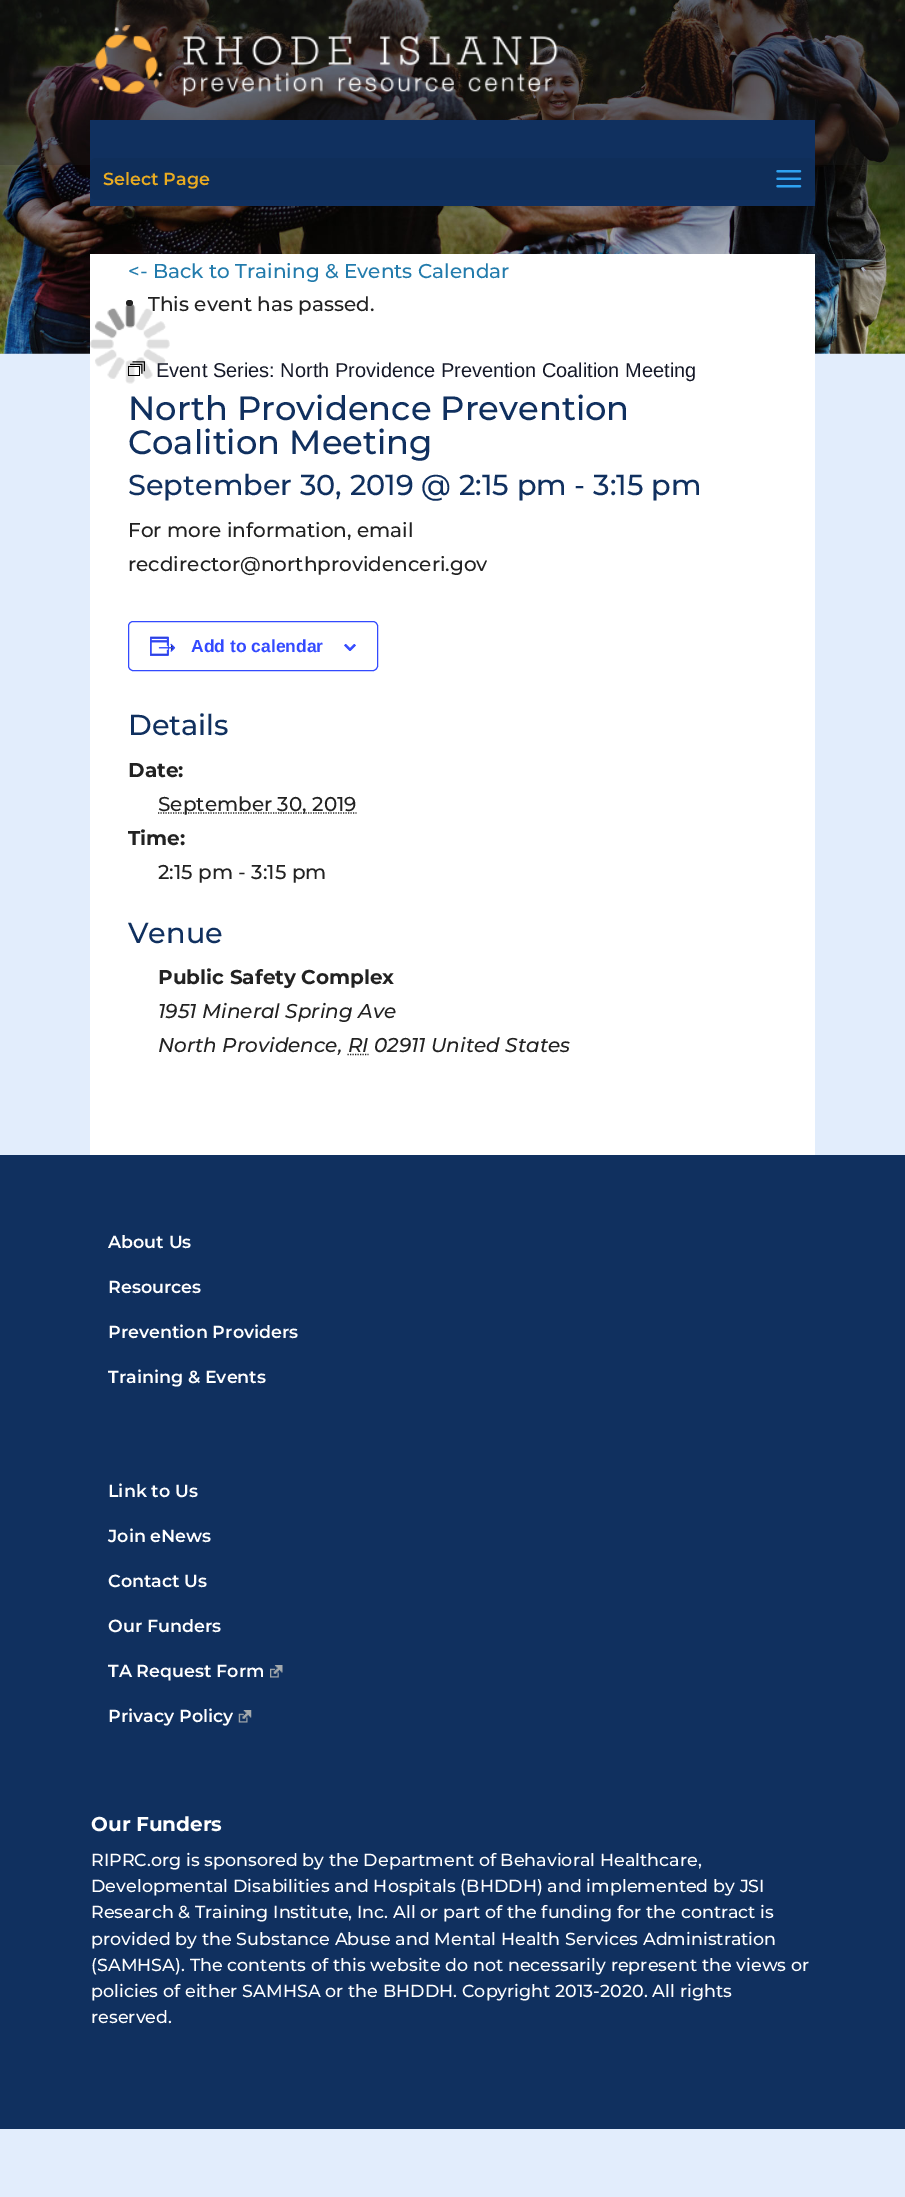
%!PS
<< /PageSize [905 2197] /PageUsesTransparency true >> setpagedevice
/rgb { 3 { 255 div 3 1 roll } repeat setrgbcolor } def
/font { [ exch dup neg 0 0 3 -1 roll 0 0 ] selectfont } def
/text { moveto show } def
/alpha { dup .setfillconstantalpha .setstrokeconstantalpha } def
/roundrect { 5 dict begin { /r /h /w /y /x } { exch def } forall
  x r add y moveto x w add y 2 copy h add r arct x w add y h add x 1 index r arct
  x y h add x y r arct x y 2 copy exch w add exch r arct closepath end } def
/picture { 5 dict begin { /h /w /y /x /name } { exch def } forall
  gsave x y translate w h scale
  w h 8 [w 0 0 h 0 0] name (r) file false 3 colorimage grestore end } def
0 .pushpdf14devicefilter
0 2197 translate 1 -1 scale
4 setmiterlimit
226 237 252 rgb
0 0 905 2197 rectfill
(img_01.rgb) 0 0 905 354 picture
0.25 alpha
34 34 34 rgb
0 0 905 165 rectfill
1 alpha
(img_02.rgb) 90 25 468 72 picture
16 48 95 rgb
90 120 725 86 rectfill
15 46 90 rgb
90 158 725 42 6 roundrect fill
(img_03.rgb) 776 170 26 18 picture
255 255 255 rgb
90 254 725 901 rectfill
(img_07.rgb) 90 303 80 81 picture
34 34 34 rgb
126 300 7 6 3 roundrect fill
(img_04.rgb) 128 361 17 15 picture
51 74 255 rgb
128.5 621.5 249 49 4.5 roundrect stroke
(img_05.rgb) 150 636 26 20 picture
(img_06.rgb) 344 644 12 7 picture
34 34 34 rgb
1.2 setlinewidth
[1.25 1.25] 0 setdash
158 813 moveto 198.5 0 rlineto stroke
347.5 1054.5 moveto 21 0 rlineto stroke
16 48 95 rgb
0 1155 905 974 rectfill
(img_08.rgb) 270 1665 13 13 picture
(img_09.rgb) 238 1710 14 13 picture
/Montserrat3-Thin 17.5 font
233 171 33 rgb
(Select Page) 103 185 text
/Montserrat-Thin 20 font
34 123 172 rgb
(<- Back to Training & Events Calendar) 128 278 text
34 34 34 rgb
(This event has passed.) 148 311 text
/LiberationSans-Regular 20 font
20 24 39 rgb
(Event Series: North Providence Prevention Coalition Meeting) 156 377 text
/Montserrat-Thin 33.75 font
16 48 95 rgb
(North Providence Prevention) 128 420 text
(Coalition Meeting) 128 454 text
/Montserrat-Thin 28.75 font
(September 30, 2019 @ 2:15 pm - 3:15 pm) 128 495 text
/Montserrat-Thin 20 font
34 34 34 rgb
(For more information, email) 128 537 text
(recdirector@northprovidenceri.gov) 128 571 text
/LiberationSans-Bold 17.5 font
51 74 255 rgb
(Add to calendar) 191 652 text
/Montserrat-Thin 28.75 font
16 48 95 rgb
(Details) 128 735 text
/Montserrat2-Thin 20 font
34 34 34 rgb
(Date:) 128 777 text
/Montserrat-Thin 20 font
(September 30, 2019) 158 811 text
/Montserrat2-Thin 20 font
(Time:) 128 845 text
/Montserrat-Thin 20 font
(2:15 pm - 3:15 pm) 158 879 text
/Montserrat-Thin 28.75 font
16 48 95 rgb
(Venue) 128 943 text
/Montserrat2-Thin 20 font
34 34 34 rgb
(Public Safety Complex) 158 984 text
/Montserrat-ThinItalic 20 font
(1951 Mineral Spring Ave) 158 1018 text
(North Providence, RI 02911 United States) 158 1052 text
/Montserrat3-Thin 17.5 font
255 255 255 rgb
(About Us) 108 1248 text
(Resources) 108 1293 text
(Prevention Providers) 108 1338 text
(Training & Events) 108 1383 text
(Link to Us) 108 1497 text
(Join eNews) 108 1542 text
(Contact Us) 108 1587 text
(Our Funders) 108 1632 text
(TA Request Form) 108 1677 text
(Privacy Policy) 108 1722 text
/Montserrat2-Thin 20 font
(Our Funders) 91 1831 text
/Montserrat-Thin 17.5 font
(RIPRC.org is sponsored by the Department of Behavioral Healthcare,) 91 1866 text
(Developmental Disabilities and Hospitals \(BHDDH\) and implemented by JSI) 91 1892 text
(Research & Training Institute, Inc. All or part of the funding for the contract is) 91 1918 text
(provided by the Substance Abuse and Mental Health Services Administration) 91 1945 text
(\(SAMHSA\). The contents of this website do not necessarily represent the views or) 91 1971 text
(policies of either SAMHSA or the BHDDH. Copyright 2013-2020. All rights) 91 1997 text
(reserved.) 91 2023 text
.poppdf14devicefilter showpage
